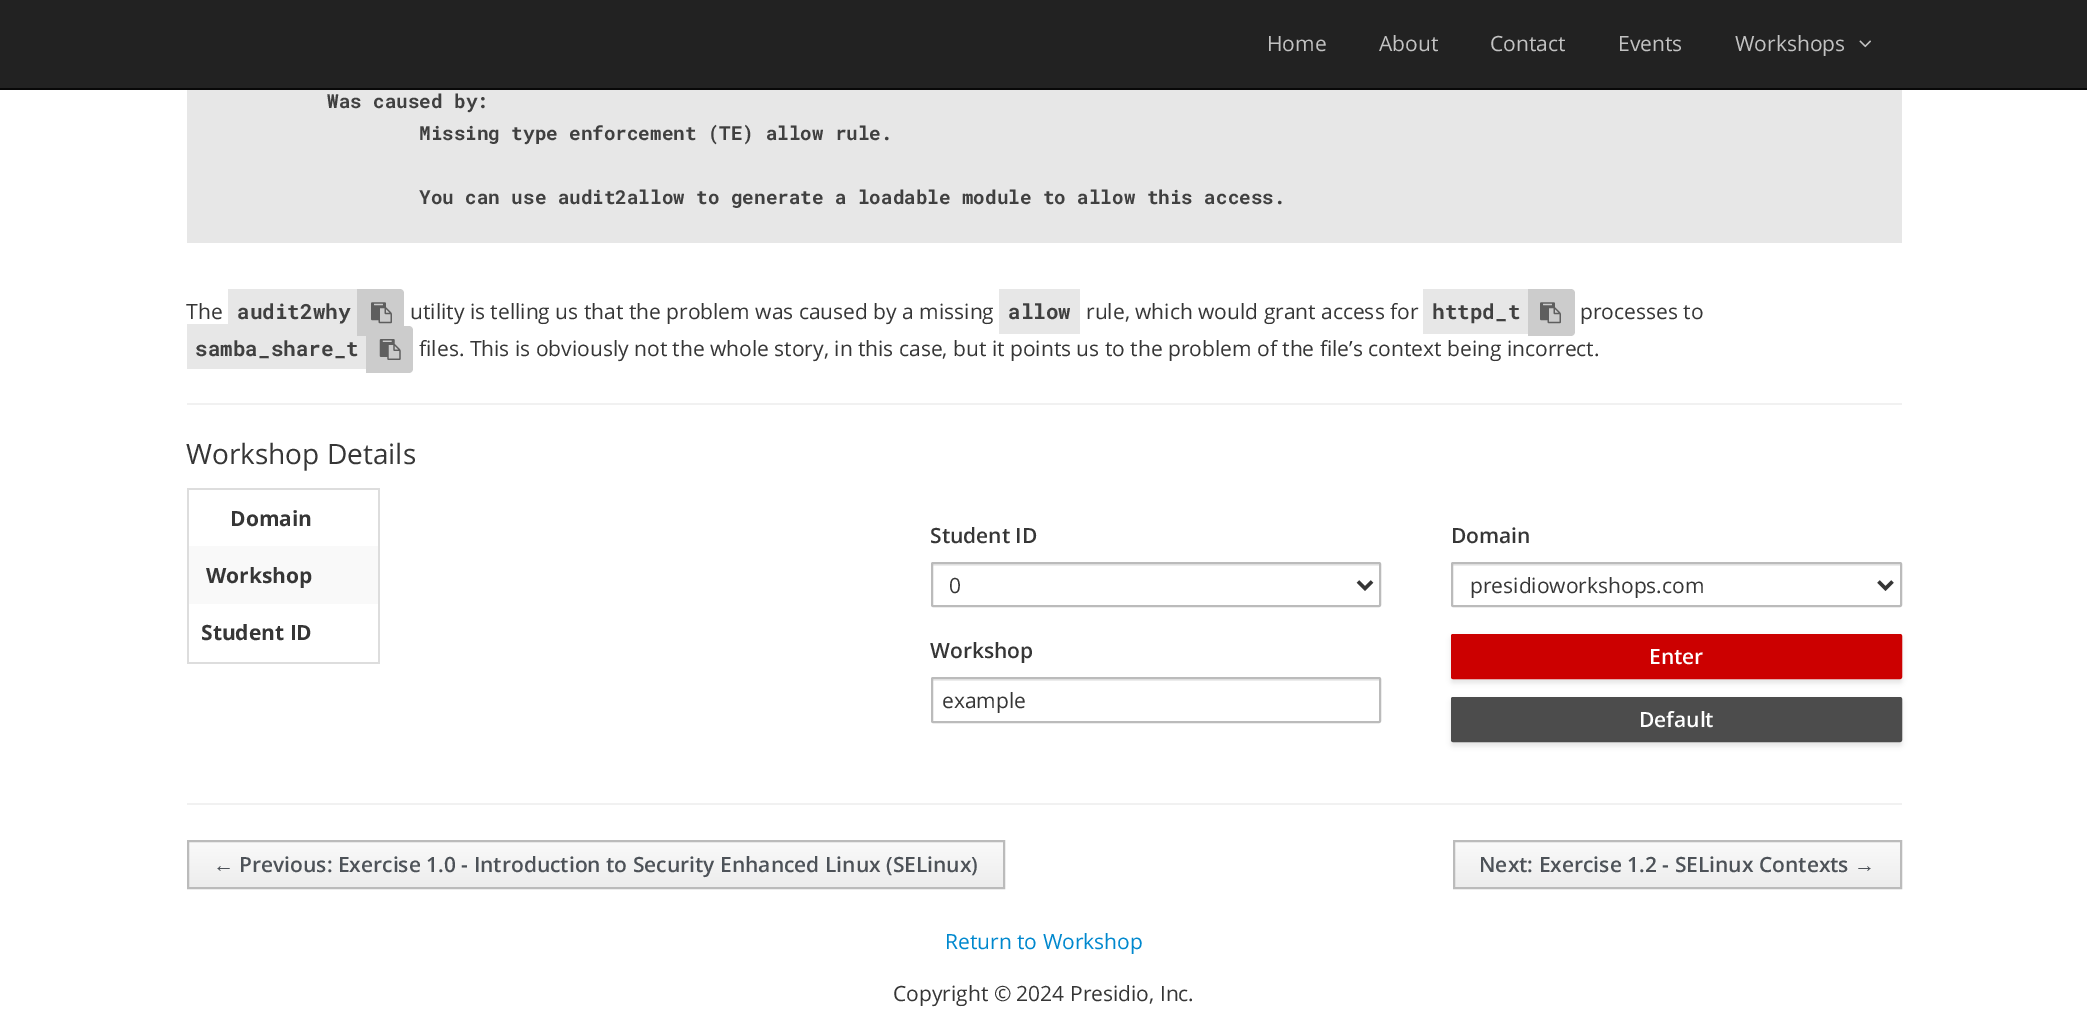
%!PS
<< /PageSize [2087 1028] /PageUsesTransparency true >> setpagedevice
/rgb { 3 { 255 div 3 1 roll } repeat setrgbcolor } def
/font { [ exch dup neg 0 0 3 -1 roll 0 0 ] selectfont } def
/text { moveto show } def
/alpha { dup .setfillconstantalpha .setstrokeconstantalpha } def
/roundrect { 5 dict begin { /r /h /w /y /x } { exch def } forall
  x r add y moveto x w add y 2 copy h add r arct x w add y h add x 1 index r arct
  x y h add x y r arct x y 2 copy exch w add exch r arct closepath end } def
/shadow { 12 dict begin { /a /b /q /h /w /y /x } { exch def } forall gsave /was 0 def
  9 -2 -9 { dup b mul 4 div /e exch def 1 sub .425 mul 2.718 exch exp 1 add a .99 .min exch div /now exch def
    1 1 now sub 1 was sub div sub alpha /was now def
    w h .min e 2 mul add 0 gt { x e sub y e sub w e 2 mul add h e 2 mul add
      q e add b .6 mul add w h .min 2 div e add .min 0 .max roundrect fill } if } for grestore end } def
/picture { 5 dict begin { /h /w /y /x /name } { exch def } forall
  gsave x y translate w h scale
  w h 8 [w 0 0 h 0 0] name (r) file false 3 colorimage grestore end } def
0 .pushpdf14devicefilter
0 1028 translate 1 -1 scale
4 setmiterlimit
255 255 255 rgb
0 0 2087 1028 rectfill
34 34 34 rgb
0 0 2087 88 rectfill
8 8 8 rgb
0 88 2087 2 rectfill
(img_01.rgb) 1859 40 12 8 picture
231 231 231 rgb
187 90 1715 153 rectfill
187 324 179 45 rectfill
204 204 204 rgb
357 289 moveto 43 0 rlineto 2 0 4 2 4 4 rcurveto 0 39 rlineto 0 2 -2 4 -4 4 rcurveto -43 0 rlineto closepath fill
1528 289 moveto 43 0 rlineto 2 0 4 2 4 4 rcurveto 0 39 rlineto 0 2 -2 4 -4 4 rcurveto -43 0 rlineto closepath fill
231 231 231 rgb
228 289 129 35 rectfill
(img_02.rgb) 371 302 21 22 picture
999 289 81 45 rectfill
1423 289 105 45 rectfill
(img_02.rgb) 1540 302 21 22 picture
204 204 204 rgb
366 326 moveto 43 0 rlineto 2 0 4 2 4 4 rcurveto 0 39 rlineto 0 2 -2 4 -4 4 rcurveto -43 0 rlineto closepath fill
(img_03.rgb) 379 339 22 21 picture
241 241 241 rgb
187 403 1715 2 rectfill
221 221 221 rgb
187 488 193 2 rectfill
378 488 2 175 rectfill
187 662 193 2 rectfill
187 488 2 175 rectfill
249 249 249 rgb
189 546 189 58 rectfill
236 236 236 rgb
933 564 446 2 rectfill
187 187 187 rgb
2 setlinewidth
932 563 448 43 1 roundrect stroke
54 54 54 rgb
3.5 setlinewidth
1358 581.5 moveto 7 7 rlineto 7 -7 rlineto stroke
236 236 236 rgb
1453 564 448 2 rectfill
187 187 187 rgb
2 setlinewidth
1452 563 449 43 1 roundrect stroke
54 54 54 rgb
3.5 setlinewidth
1878.5 581.5 moveto 7 7 rlineto 7 -7 rlineto stroke
236 236 236 rgb
933 679 446 2 rectfill
187 187 187 rgb
2 setlinewidth
932 678 448 44 1 roundrect stroke
3 3 3 rgb
1451 637 451 46 2 2.5 0.1 shadow
204 0 0 rgb
1452 635 449 43 1 roundrect gsave fill grestore
stroke
3 3 3 rgb
1451 700 451 46 2 2.5 0.1 shadow
76 76 76 rgb
1452 698 449 43 1 roundrect gsave fill grestore
stroke
241 241 241 rgb
187 803 1715 2 rectfill
gsave 189 842 moveto 814 0 rlineto 0 45 rlineto -814 0 rlineto closepath clip newpath
<< /ShadingType 2 /ColorSpace /DeviceRGB /Coords [596 842 596 887] /Extend [true true] /Function << /FunctionType 2 /Domain [0 1] /C0 [0.98 0.98 0.98] /C1 [0.929 0.929 0.929] /N 1 >> >> shfill grestore
187 187 187 rgb
188 841 816 47 rectstroke
gsave 1455 842 moveto 445 0 rlineto 0 45 rlineto -445 0 rlineto closepath clip newpath
<< /ShadingType 2 /ColorSpace /DeviceRGB /Coords [1677 842 1677 887] /Extend [true true] /Function << /FunctionType 2 /Domain [0 1] /C0 [0.98 0.98 0.98] /C1 [0.929 0.929 0.929] /N 1 >> >> shfill grestore
1454 841 447 47 rectstroke
/OpenSans-Regular 21 font
194 194 194 rgb
(Home) 1267 51 text
(About) 1379 51 text
(Contact) 1490 51 text
(Events) 1618 51 text
(Workshops) 1735 51 text
/RobotoMono-Bold 19.25 font
64 64 64 rgb
(Was caused by:) 327 108 text
(Missing type enforcement \(TE\) allow rule.) 419 140 text
(You can use audit2allow to generate a loadable module to allow this access.) 419 204 text
/OpenSans-Regular 21 font
54 54 54 rgb
(The) 186 319 text
/RobotoMono-Bold 21 font
64 64 64 rgb
(audit2why) 237 319 text
/OpenSans-Regular 21 font
54 54 54 rgb
(utility is telling us that the problem was caused by a missing) 410 319 text
/RobotoMono-Bold 21 font
64 64 64 rgb
(allow) 1008 319 text
/OpenSans-Regular 21 font
54 54 54 rgb
(rule, which would grant access for) 1086 319 text
/RobotoMono-Bold 21 font
64 64 64 rgb
(httpd_t) 1432 319 text
/OpenSans-Regular 21 font
54 54 54 rgb
(processes to) 1580 319 text
/RobotoMono-Bold 21 font
64 64 64 rgb
(samba_share_t) 195 356 text
/OpenSans-Regular 21 font
54 54 54 rgb
(files. This is obviously not the whole story, in this case, but it points us to the problem of the file’s context being incorrect.) 419 356 text
/OpenSans-Regular 28 font
(Workshop Details) 186 464 text
/OpenSans-Bold 21 font
(Domain) 230 526 text
(Workshop) 206 583 text
(Student ID) 201 640 text
/OpenSans-SemiBold 21 font
(Student ID) 930 543 text
/OpenSans-Regular 21 font
(0) 949 593 text
/OpenSans-SemiBold 21 font
(Domain) 1451 543 text
/OpenSans-Regular 21 font
(presidioworkshops.com) 1470 593 text
/OpenSans-SemiBold 21 font
(Workshop) 930 658 text
/OpenSans-Regular 21 font
(example) 942 708 text
/OpenSans-SemiBold 21 font
255 255 255 rgb
(Enter) 1649 664 text
(Default) 1639 727 text
/LiberationSans-Bold 21 font
77 82 88 rgb
(←) 213 872 text
/OpenSans-SemiBold 21 font
(Previous: Exercise 1.0 - Introduction to Security Enhanced Linux \(SELinux\)) 239 872 text
(Next: Exercise 1.2 - SELinux Contexts) 1479 872 text
/LiberationSans-Bold 21 font
(→) 1854 872 text
/OpenSans-Regular 21 font
0 136 206 rgb
(Return to Workshop) 945 949 text
54 54 54 rgb
(Copyright © 2024 Presidio, Inc.) 893 1001 text
.poppdf14devicefilter showpage
